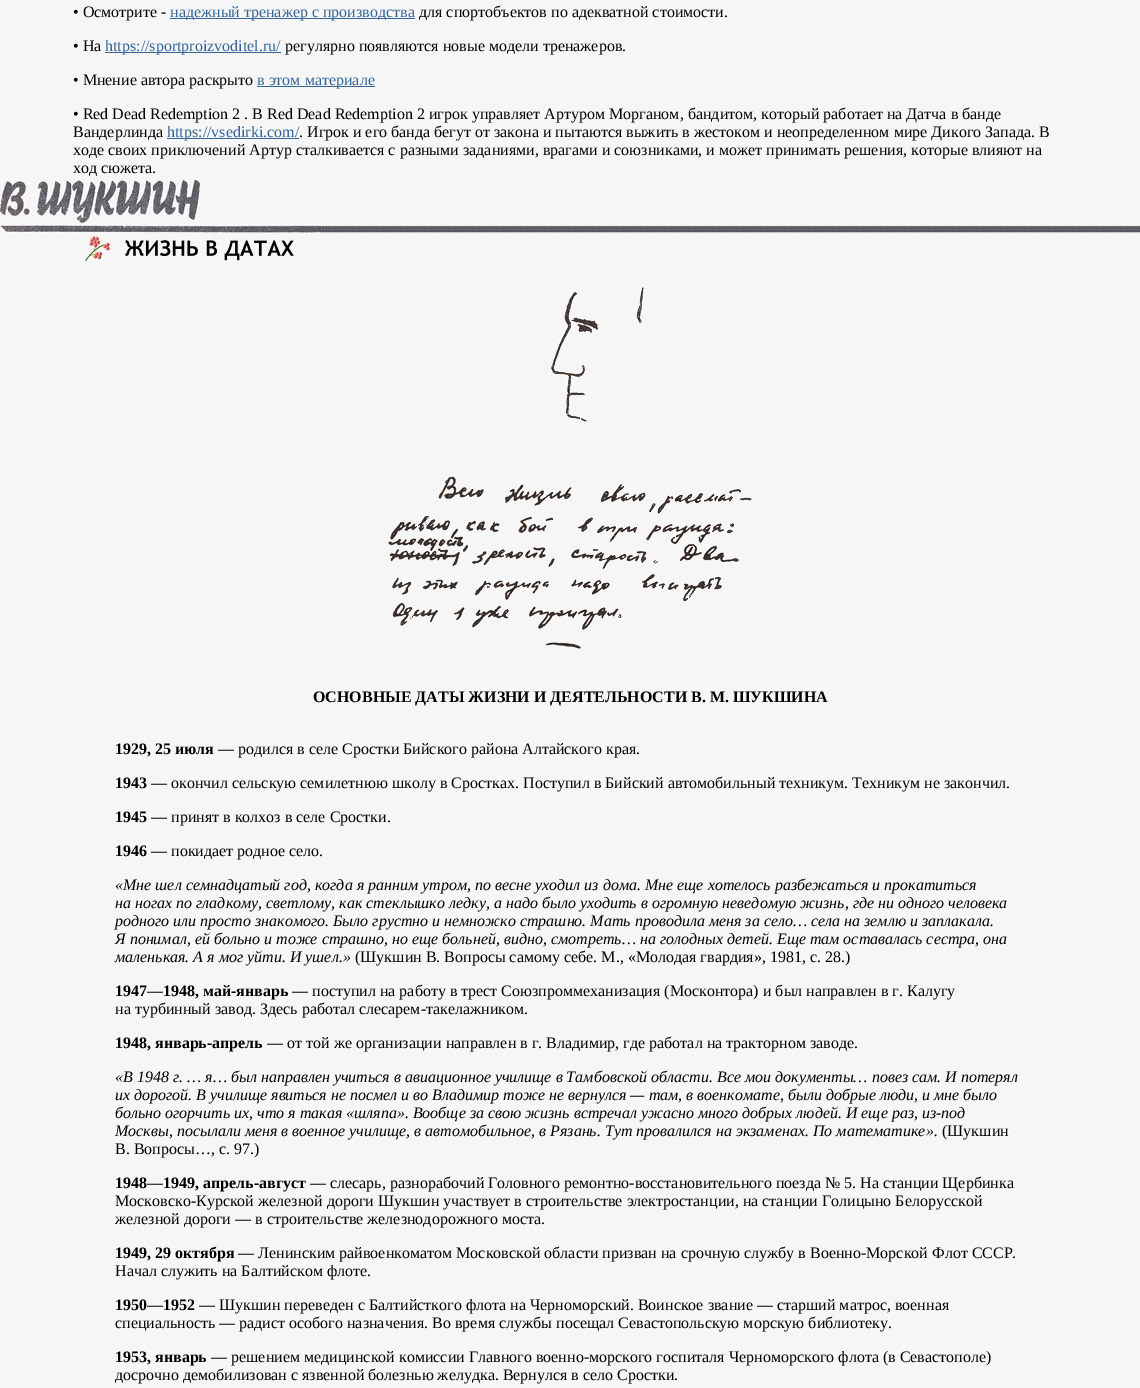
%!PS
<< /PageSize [1140 1388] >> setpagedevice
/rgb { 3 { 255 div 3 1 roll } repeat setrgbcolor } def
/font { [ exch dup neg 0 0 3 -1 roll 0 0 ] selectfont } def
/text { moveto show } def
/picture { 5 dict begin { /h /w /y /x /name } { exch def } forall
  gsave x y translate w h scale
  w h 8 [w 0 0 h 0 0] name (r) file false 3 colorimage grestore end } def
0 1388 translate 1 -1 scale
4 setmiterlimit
246 246 246 rgb
0 0 1140 1388 rectfill
51 102 153 rgb
170 18 245 1 rectfill
105 52 176 1 rectfill
257 86 118 1 rectfill
167 138 132 1 rectfill
(img_01.rgb) 0 180 321 85 picture
(img_02.rgb) 321 225 819 8 picture
(img_03.rgb) 388 287 364 362 picture
/LiberationSerif-Regular 16 font
0 0 0 rgb
(• Осмотрите -) 73 17 text
51 102 153 rgb
(надежный тренажер с производства) 170 17 text
0 0 0 rgb
(для спортобъектов по адекватной стоимости.) 419 17 text
(• На) 73 51 text
51 102 153 rgb
(https://sportproizvoditel.ru/) 105 51 text
0 0 0 rgb
(регулярно появляются новые модели тренажеров.) 285 51 text
(• Мнение автора раскрыто) 73 85 text
51 102 153 rgb
(в этом материале) 257 85 text
0 0 0 rgb
(• Red Dead Redemption 2 . В Red Dead Redemption 2 игрок управляет Артуром Морганом, бандитом, который работает на Датча в банде) 73 119 text
(Вандерлинда) 73 137 text
51 102 153 rgb
(https://vsedirki.com/) 167 137 text
0 0 0 rgb
(. Игрок и его банда бегут от закона и пытаются выжить в жестоком и неопределенном мире Дикого Запада. В) 299 137 text
(ходе своих приключений Артур сталкивается с разными заданиями, врагами и союзниками, и может принимать решения, которые влияют на) 73 155 text
(ход сюжета.) 73 173 text
/LiberationSerif-Bold 16 font
(ОСНОВНЫЕ ДАТЫ ЖИЗНИ И ДЕЯТЕЛЬНОСТИ В. М. ШУКШИНА) 313 702 text
(1929, 25 июля) 115 754 text
/LiberationSerif-Regular 16 font
(— родился в селе Сростки Бийского района Алтайского края.) 218 754 text
/LiberationSerif-Bold 16 font
(1943) 115 788 text
/LiberationSerif-Regular 16 font
(— окончил сельскую семилетнюю школу в Сростках. Поступил в Бийский автомобильный техникум. Техникум не закончил.) 151 788 text
/LiberationSerif-Bold 16 font
(1945) 115 822 text
/LiberationSerif-Regular 16 font
(— принят в колхоз в селе Сростки.) 151 822 text
/LiberationSerif-Bold 16 font
(1946) 115 856 text
/LiberationSerif-Regular 16 font
(— покидает родное село.) 151 856 text
/LiberationSerif-Italic 16 font
(«Мне шел семнадцатый год, когда я ранним утром, по весне уходил из дома. Мне еще хотелось разбежаться и прокатиться) 115 890 text
(на ногах по гладкому, светлому, как стеклышко ледку, а надо было уходить в огромную неведомую жизнь, где ни одного человека) 115 908 text
(родного или просто знакомого. Было грустно и немножко страшно. Мать проводила меня за село… села на землю и заплакала.) 115 926 text
(Я понимал, ей больно и тоже страшно, но еще больней, видно, смотреть… на голодных детей. Еще там оставалась сестра, она) 115 944 text
(маленькая. А я мог уйти. И ушел.») 115 962 text
/LiberationSerif-Regular 16 font
(\(Шукшин В. Вопросы самому себе. М., «Молодая гвардия», 1981, с. 28.\)) 355 962 text
/LiberationSerif-Bold 16 font
(1947—1948, май-январь) 115 996 text
/LiberationSerif-Regular 16 font
(— поступил на работу в трест Союзпроммеханизация \(Москонтора\) и был направлен в г. Калугу) 292 996 text
(на турбинный завод. Здесь работал слесарем-такелажником.) 115 1014 text
/LiberationSerif-Bold 16 font
(1948, январь-апрель) 115 1048 text
/LiberationSerif-Regular 16 font
(— от той же организации направлен в г. Владимир, где работал на тракторном заводе.) 267 1048 text
/LiberationSerif-Italic 16 font
(«В 1948 г. … я… был направлен учиться в авиационное училище в Тамбовской области. Все мои документы… повез сам. И потерял) 115 1082 text
(их дорогой. В училище явиться не посмел и во Владимир тоже не вернулся — там, в военкомате, были добрые люди, и мне было) 115 1100 text
(больно огорчить их, что я такая «шляпа». Вообще за свою жизнь встречал ужасно много добрых людей. И еще раз, из-под) 115 1118 text
(Москвы, посылали меня в военное училище, в автомобильное, в Рязань. Тут провалился на экзаменах. По математике».) 115 1136 text
/LiberationSerif-Regular 16 font
(\(Шукшин) 942 1136 text
(В. Вопросы…, с. 97.\)) 115 1154 text
/LiberationSerif-Bold 16 font
(1948—1949, апрель-август) 115 1188 text
/LiberationSerif-Regular 16 font
(— слесарь, разнорабочий Головного ремонтно-восстановительного поезда № 5. На станции Щербинка) 310 1188 text
(Московско-Курской железной дороги Шукшин участвует в строительстве электростанции, на станции Голицыно Белорусской) 115 1206 text
(железной дороги — в строительстве железнодорожного моста.) 115 1224 text
/LiberationSerif-Bold 16 font
(1949, 29 октября) 115 1258 text
/LiberationSerif-Regular 16 font
(— Ленинским райвоенкоматом Московской области призван на срочную службу в Военно-Морской Флот СССР.) 238 1258 text
(Начал служить на Балтийском флоте.) 115 1276 text
/LiberationSerif-Bold 16 font
(1950—1952) 115 1310 text
/LiberationSerif-Regular 16 font
(— Шукшин переведен с Балтийсткого флота на Черноморский. Воинское звание — старший матрос, военная) 199 1310 text
(специальность — радист особого назначения. Во время службы посещал Севастопольскую морскую библиотеку.) 115 1328 text
/LiberationSerif-Bold 16 font
(1953, январь) 115 1362 text
/LiberationSerif-Regular 16 font
(— решением медицинской комиссии Главного военно-морского госпиталя Черноморского флота \(в Севастополе\)) 211 1362 text
(досрочно демобилизован с язвенной болезнью желудка. Вернулся в село Сростки.) 115 1380 text
showpage
